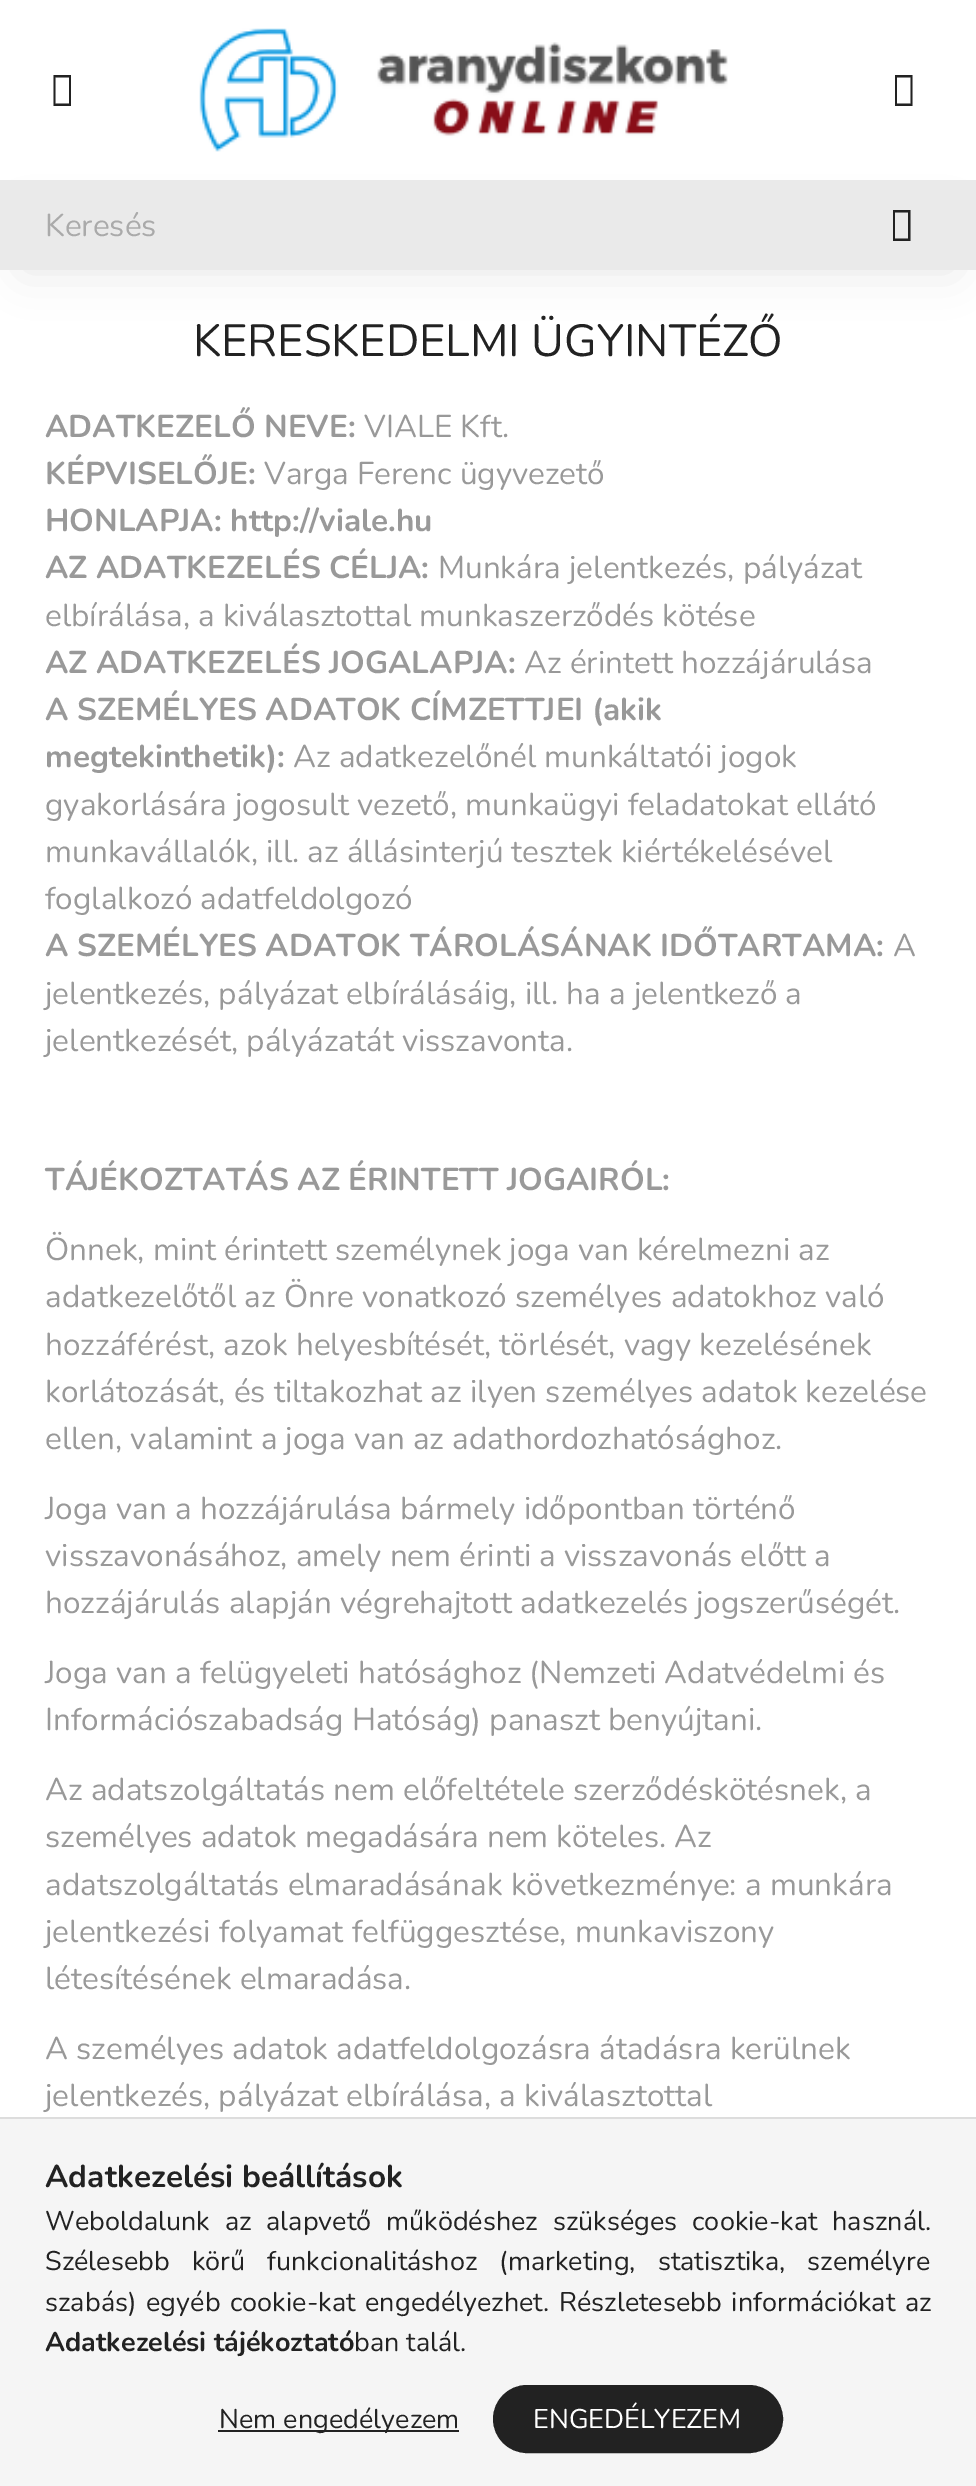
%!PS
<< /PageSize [976 2486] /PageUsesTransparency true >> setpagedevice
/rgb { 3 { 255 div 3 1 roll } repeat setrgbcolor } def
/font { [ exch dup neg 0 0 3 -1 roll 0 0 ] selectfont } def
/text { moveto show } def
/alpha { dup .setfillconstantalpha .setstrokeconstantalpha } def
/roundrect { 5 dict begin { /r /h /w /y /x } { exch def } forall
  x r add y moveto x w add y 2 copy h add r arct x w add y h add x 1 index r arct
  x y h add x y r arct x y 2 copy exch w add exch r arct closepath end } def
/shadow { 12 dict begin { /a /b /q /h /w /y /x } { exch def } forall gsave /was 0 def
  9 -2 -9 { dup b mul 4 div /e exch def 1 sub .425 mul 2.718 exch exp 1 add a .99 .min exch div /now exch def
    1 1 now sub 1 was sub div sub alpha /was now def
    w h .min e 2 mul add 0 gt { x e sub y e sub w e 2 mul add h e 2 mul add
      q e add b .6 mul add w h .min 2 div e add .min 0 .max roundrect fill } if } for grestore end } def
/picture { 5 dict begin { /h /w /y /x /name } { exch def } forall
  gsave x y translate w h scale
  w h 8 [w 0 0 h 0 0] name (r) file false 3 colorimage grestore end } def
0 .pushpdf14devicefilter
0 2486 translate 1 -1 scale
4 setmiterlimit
255 255 255 rgb
0 0 976 2486 rectfill
34 34 34 rgb
53.5 106 moveto 0 -31 rlineto 17.5 0 rlineto 0 31 rlineto closepath 55.5 103.5 moveto 13.5 0 rlineto 0 -26 rlineto -13.5 0 rlineto closepath fill
(img_01.rgb) 199 28 529 124 picture
895 106 moveto 0 -31 rlineto 17.5 0 rlineto 0 31 rlineto closepath 897 103.5 moveto 13.5 0 rlineto 0 -26 rlineto -13.5 0 rlineto closepath fill
0 0 0 rgb
23 225 931 45 0 22.5 0.1 shadow
234 234 234 rgb
0 180 976 90 rectfill
34 34 34 rgb
893 241 moveto 0 -31 rlineto 17.5 0 rlineto 0 31 rlineto closepath 895 238.5 moveto 13 0 rlineto 0 -26 rlineto -13 0 rlineto closepath fill
245 245 245 rgb
0 2119 976 367 rectfill
221 221 221 rgb
0 2117 976 2 rectfill
34 34 34 rgb
218 2430 241 2 rectfill
494 2386 288 66 33 roundrect gsave fill grestore
2 setlinewidth
stroke
/Nunito-Regular 31.5 font
170 170 170 rgb
(Keresés) 45 236 text
/Nunito-Regular 45 font
34 34 34 rgb
(KERESKEDELMI ÜGYINTÉZŐ) 193 356 text
/Nunito-Bold 31.5 font
153 153 153 rgb
(ADATKEZELŐ NEVE:) 45 437 text
/Nunito-Regular 31.5 font
(VIALE Kft.) 364 437 text
/Nunito-Bold 31.5 font
(KÉPVISELŐJE:) 45 484 text
/Nunito-Regular 31.5 font
(Varga Ferenc ügyvezető) 264 484 text
/Nunito-Bold 31.5 font
(HONLAPJA: http://viale.hu) 45 531 text
(AZ ADATKEZELÉS CÉLJA:) 45 578 text
/Nunito-Regular 31.5 font
(Munkára jelentkezés, pályázat) 438 578 text
(elbírálása, a kiválasztottal munkaszerződés kötése) 45 626 text
/Nunito-Bold 31.5 font
(AZ ADATKEZELÉS JOGALAPJA:) 45 673 text
/Nunito-Regular 31.5 font
(Az érintett hozzájárulása) 524 673 text
/Nunito-Bold 31.5 font
(A SZEMÉLYES ADATOK CÍMZETTJEI \(akik) 45 720 text
(megtekinthetik\):) 45 767 text
/Nunito-Regular 31.5 font
(Az adatkezelőnél munkáltatói jogok) 293 767 text
(gyakorlására jogosult vezető, munkaügyi feladatokat ellátó) 45 815 text
(munkavállalók, ill. az állásinterjú tesztek kiértékelésével) 45 862 text
(foglalkozó adatfeldolgozó) 45 909 text
/Nunito-Bold 31.5 font
(A SZEMÉLYES ADATOK TÁROLÁSÁNAK IDŐTARTAMA:) 45 956 text
/Nunito-Regular 31.5 font
(A) 893 956 text
(jelentkezés, pályázat elbírálásáig, ill. ha a jelentkező a) 45 1004 text
(jelentkezését, pályázatát visszavonta.) 45 1051 text
/Nunito-Bold 31.5 font
(TÁJÉKOZTATÁS AZ ÉRINTETT JOGAIRÓL:) 45 1190 text
/Nunito-Regular 31.5 font
(Önnek, mint érintett személynek joga van kérelmezni az) 45 1260 text
(adatkezelőtől az Önre vonatkozó személyes adatokhoz való) 45 1307 text
(hozzáférést, azok helyesbítését, törlését, vagy kezelésének) 45 1355 text
(korlátozását, és tiltakozhat az ilyen személyes adatok kezelése) 45 1402 text
(ellen, valamint a joga van az adathordozhatósághoz.) 45 1449 text
(Joga van a hozzájárulása bármely időpontban történő) 45 1519 text
(visszavonásához, amely nem érinti a visszavonás előtt a) 45 1566 text
(hozzájárulás alapján végrehajtott adatkezelés jogszerűségét.) 45 1613 text
(Joga van a felügyeleti hatósághoz \(Nemzeti Adatvédelmi és) 45 1683 text
(Információszabadság Hatóság\) panaszt benyújtani.) 45 1730 text
(Az adatszolgáltatás nem előfeltétele szerződéskötésnek, a) 45 1800 text
(személyes adatok megadására nem köteles. Az) 45 1847 text
(adatszolgáltatás elmaradásának következménye: a munkára) 45 1895 text
(jelentkezési folyamat felfüggesztése, munkaviszony) 45 1942 text
(létesítésének elmaradása.) 45 1989 text
(A személyes adatok adatfeldolgozásra átadásra kerülnek) 45 2059 text
(jelentkezés, pályázat elbírálása, a kiválasztottal) 45 2106 text
/Nunito-Bold 31.5 font
34 34 34 rgb
(Adatkezelési beállítások) 45 2187 text
/Nunito-Regular 27 font
45 2230 moveto 7.75 0 32 (Weboldalunk az alapvető működéshez szükséges cookie-kat használ.) widthshow
45 2270 moveto 15 0 32 (Szélesebb körű funkcionalitáshoz \(marketing, statisztika, személyre) widthshow
45 2311 moveto 2.75 0 32 (szabás\) egyéb cookie-kat engedélyezhet. Részletesebb információkat az) widthshow
/Nunito-Bold 27 font
(Adatkezelési tájékoztató) 45 2351 text
/Nunito-Regular 27 font
(ban talál.) 354 2351 text
(Nem engedélyezem) 219 2428 text
255 255 255 rgb
(ENGEDÉLYEZEM) 533 2428 text
.poppdf14devicefilter showpage
